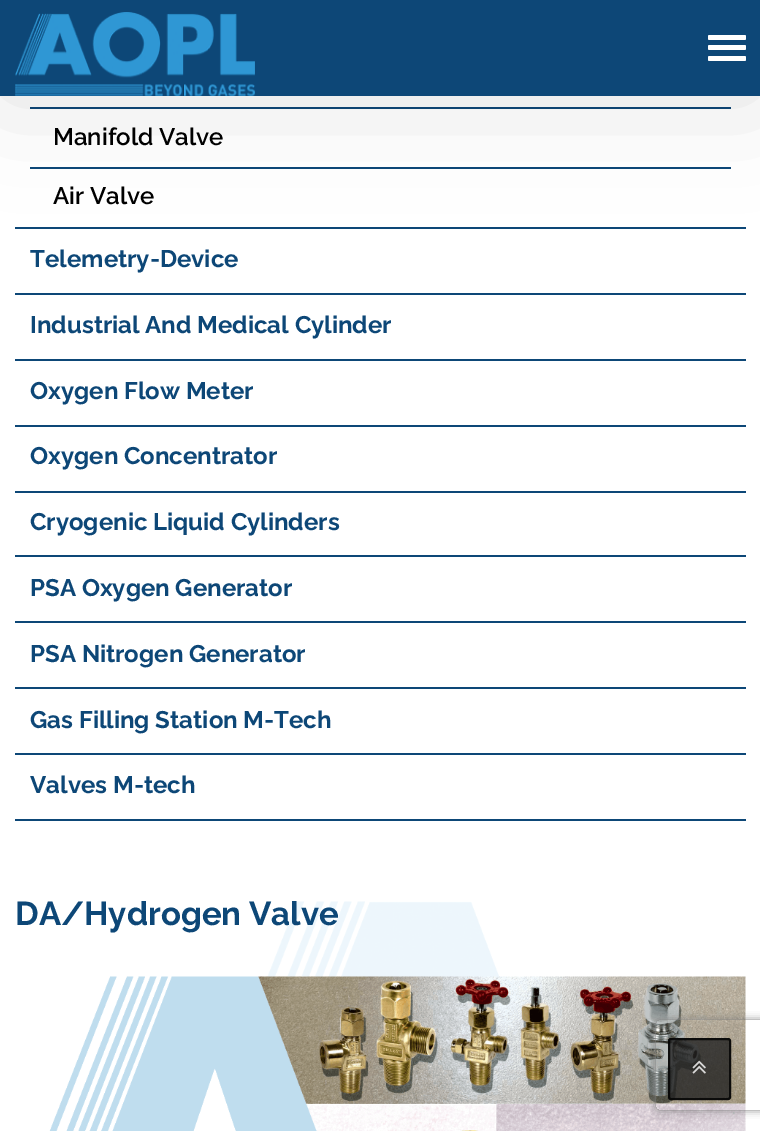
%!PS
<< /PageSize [760 1131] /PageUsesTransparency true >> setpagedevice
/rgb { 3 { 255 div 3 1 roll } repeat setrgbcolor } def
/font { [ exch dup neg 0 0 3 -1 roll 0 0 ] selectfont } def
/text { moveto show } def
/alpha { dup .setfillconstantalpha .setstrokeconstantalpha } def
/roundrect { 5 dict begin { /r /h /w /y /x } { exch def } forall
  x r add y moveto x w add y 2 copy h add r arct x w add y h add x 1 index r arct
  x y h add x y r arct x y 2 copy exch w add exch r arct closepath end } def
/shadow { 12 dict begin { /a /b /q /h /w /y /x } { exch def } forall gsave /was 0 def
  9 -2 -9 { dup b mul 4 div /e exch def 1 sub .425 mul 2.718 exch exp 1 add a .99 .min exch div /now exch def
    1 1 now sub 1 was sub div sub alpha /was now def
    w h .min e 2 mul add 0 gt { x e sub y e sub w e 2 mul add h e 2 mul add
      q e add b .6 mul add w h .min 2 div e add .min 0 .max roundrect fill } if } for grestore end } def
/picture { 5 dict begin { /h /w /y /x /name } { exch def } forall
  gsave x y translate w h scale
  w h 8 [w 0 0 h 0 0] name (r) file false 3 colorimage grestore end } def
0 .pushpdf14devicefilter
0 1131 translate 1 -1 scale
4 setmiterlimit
255 255 255 rgb
0 0 760 1131 rectfill
13 71 119 rgb
15 227 731 2 rectfill
30 107 701 2 rectfill
30 167 701 2 rectfill
0 0 0 rgb
0 0 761 96 0 52.5 0.12 shadow
13 71 119 rgb
0 0 760 96 rectfill
(img_01.rgb) 15 12 240 84 picture
255 255 255 rgb
708 35 38 5 1.5 roundrect fill
708 45 38 5 1.5 roundrect fill
708 56 38 5 1.5 roundrect fill
(img_02.rgb) 267 901 233 76 picture
13 71 119 rgb
15 293 731 2 rectfill
15 359 731 2 rectfill
15 425 731 2 rectfill
15 491 731 2 rectfill
15 555 731 2 rectfill
15 621 731 2 rectfill
15 687 731 2 rectfill
15 753 731 2 rectfill
15 819 731 2 rectfill
(img_03.rgb) 49 976 697 155 picture
gsave
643 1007 moveto 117 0 rlineto 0 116 rlineto -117 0 rlineto closepath 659 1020 moveto 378 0 rlineto 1.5 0 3 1.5 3 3 rcurveto 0 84 rlineto 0 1.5 -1.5 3 -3 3 rcurveto -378 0 rlineto -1.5 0 -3 -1.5 -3 -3 rcurveto 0 -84 rlineto 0 -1.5 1.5 -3 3 -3 rcurveto closepath eoclip newpath
128 128 128 rgb
656 1020 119 90 3 4 1 shadow
grestore
0.8 alpha
34 34 34 rgb
668 1038 63 62 3 roundrect fill
0 0 0 rgb
2 setlinewidth
669 1039 61 60 2 roundrect stroke
1 alpha
(img_04.rgb) 692 1060 14 14 picture
/Raleway-SemiBold 24 font
(Manifold Valve) 53 145 text
(Air Valve) 53 204 text
/Raleway-Bold 24 font
13 71 119 rgb
(Telemetry-Device) 30 267 text
(Industrial And Medical Cylinder) 30 333 text
(Oxygen Flow Meter) 30 399 text
(Oxygen Concentrator) 30 464 text
(Cryogenic Liquid Cylinders) 30 530 text
(PSA Oxygen Generator) 30 596 text
(PSA Nitrogen Generator) 30 662 text
(Gas Filling Station M-Tech) 30 728 text
(Valves M-tech) 30 793 text
/Raleway-Bold 33 font
(DA/Hydrogen Valve) 15 925 text
.poppdf14devicefilter showpage
